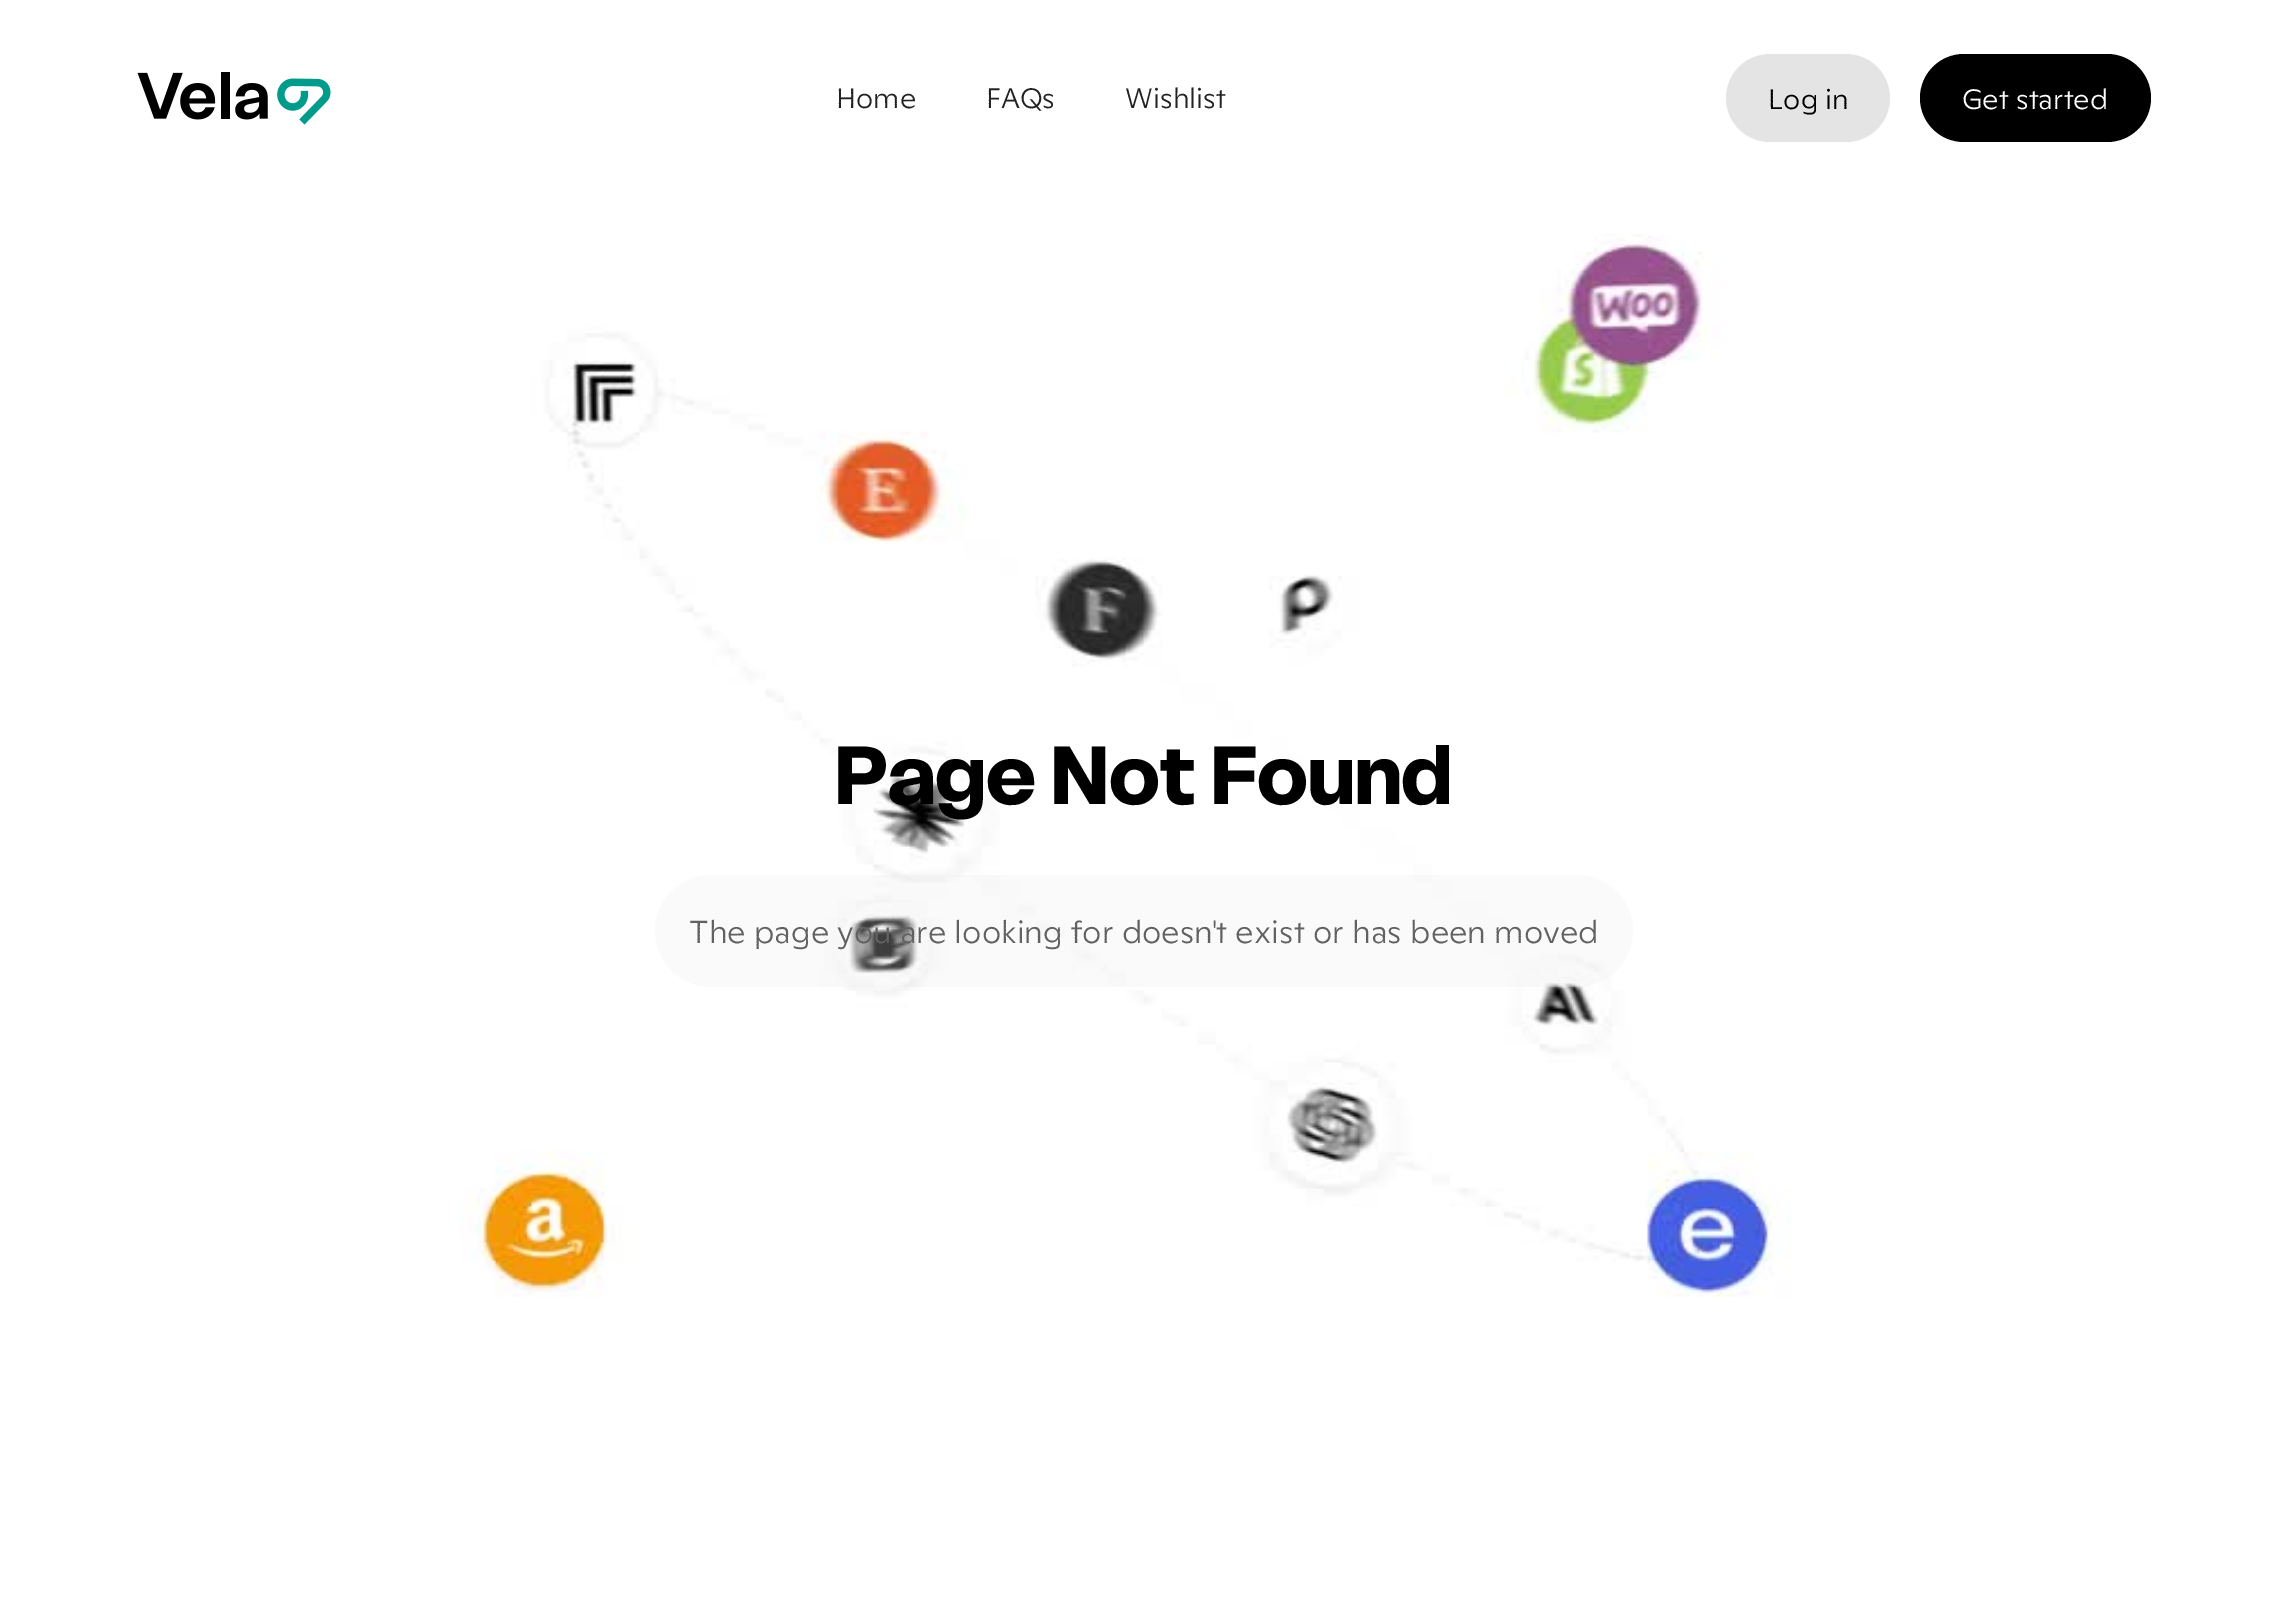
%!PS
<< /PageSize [2287 1619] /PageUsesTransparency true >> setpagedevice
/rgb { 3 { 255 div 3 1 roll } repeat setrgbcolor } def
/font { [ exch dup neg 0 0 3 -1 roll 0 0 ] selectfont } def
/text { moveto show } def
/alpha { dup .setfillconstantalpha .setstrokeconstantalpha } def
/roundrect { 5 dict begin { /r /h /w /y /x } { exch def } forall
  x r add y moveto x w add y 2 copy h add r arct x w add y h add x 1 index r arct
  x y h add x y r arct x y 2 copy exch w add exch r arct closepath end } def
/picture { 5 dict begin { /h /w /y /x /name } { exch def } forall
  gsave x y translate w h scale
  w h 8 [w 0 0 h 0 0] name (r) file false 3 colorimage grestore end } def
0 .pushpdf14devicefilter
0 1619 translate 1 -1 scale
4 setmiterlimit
255 255 255 rgb
0 0 2287 1619 rectfill
(img_01.rgb) 137 72 194 53 picture
228 228 228 rgb
1726 54 164 88 44 roundrect fill
0 0 0 rgb
1920 54 231 88 44 roundrect fill
(img_02.rgb) 460 234 1332 1064 picture
0.26 alpha
235 235 235 rgb
655 875 978 112 56 roundrect fill
/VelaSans-Light 28 font
1 alpha
34 34 34 rgb
(Home) 836 108 text
(FAQs) 986 108 text
(Wishlist) 1125 108 text
0 0 0 rgb
(Log in) 1768 109 text
255 255 255 rgb
(Get started) 1962 109 text
/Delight-Light 80.5 font
0 0 0 rgb
(Page Not Found) 835 804 text
/VelaSans-Light 31.5 font
97 97 97 rgb
(The page you are looking for doesn't exist or has been moved) 689 943 text
.poppdf14devicefilter showpage
